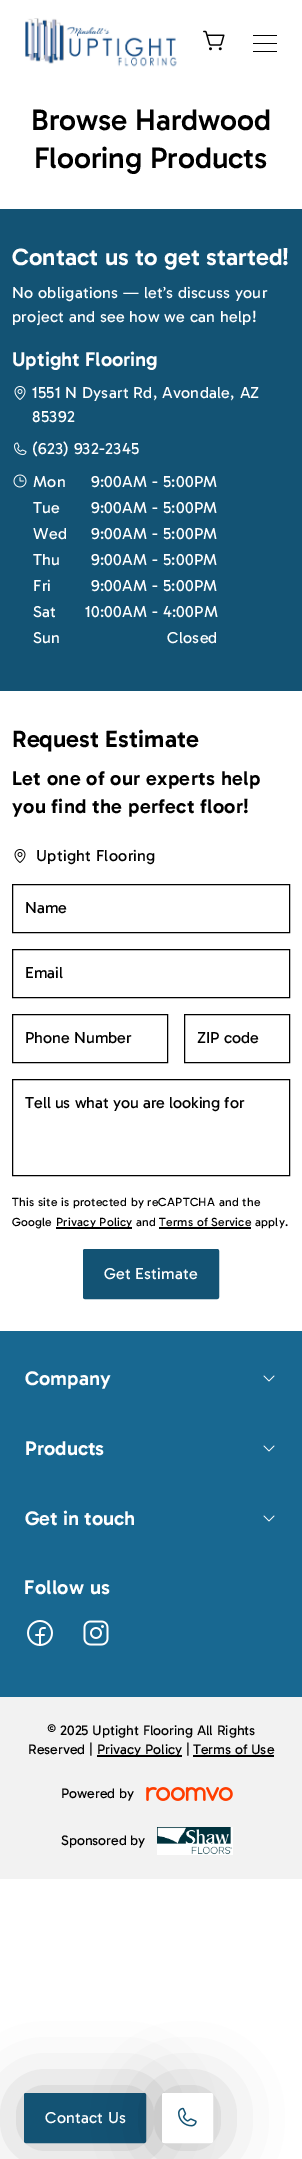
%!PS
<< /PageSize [302 2159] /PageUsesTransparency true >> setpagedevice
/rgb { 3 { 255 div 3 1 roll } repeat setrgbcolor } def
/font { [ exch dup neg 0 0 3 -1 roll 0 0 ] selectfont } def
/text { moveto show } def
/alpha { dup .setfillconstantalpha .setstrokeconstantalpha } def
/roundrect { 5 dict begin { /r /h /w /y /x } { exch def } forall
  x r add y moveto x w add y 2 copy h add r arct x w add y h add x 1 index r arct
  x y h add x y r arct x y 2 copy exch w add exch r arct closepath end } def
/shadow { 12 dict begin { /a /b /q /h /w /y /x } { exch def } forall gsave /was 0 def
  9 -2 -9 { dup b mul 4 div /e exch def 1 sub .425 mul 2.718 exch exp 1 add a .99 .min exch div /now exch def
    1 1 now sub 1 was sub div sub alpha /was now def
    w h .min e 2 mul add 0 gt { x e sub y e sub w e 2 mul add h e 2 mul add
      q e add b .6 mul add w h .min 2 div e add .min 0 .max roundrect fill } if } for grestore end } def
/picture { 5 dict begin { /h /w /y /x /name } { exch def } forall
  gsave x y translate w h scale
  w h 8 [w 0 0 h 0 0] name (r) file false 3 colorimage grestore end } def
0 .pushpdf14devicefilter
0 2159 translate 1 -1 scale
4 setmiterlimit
255 255 255 rgb
0 0 302 2159 rectfill
19 83 116 rgb
0 209 302 482 rectfill
(img_01.rgb) 14 386 12 14 picture
(img_02.rgb) 14 442 13 13 picture
(img_03.rgb) 13 474 14 14 picture
(img_04.rgb) 14 849 12 14 picture
0 0 0 rgb
12.5 884.5 277 48 rectstroke
12.5 949.5 277 48 rectstroke
12.5 1014.5 155 48 rectstroke
184.5 1014.5 105 48 rectstroke
12.5 1079.5 277 96 rectstroke
56 1227 76 2 rectfill
159 1227 92 2 rectfill
19 83 116 rgb
83.5 1249.5 135 49 1.5 roundrect gsave fill grestore
stroke
24 104 145 rgb
0 1331 302 366 rectfill
(img_05.rgb) 263 1375 12 7 picture
(img_05.rgb) 263 1445 12 7 picture
(img_05.rgb) 263 1515 12 7 picture
(img_06.rgb) 27 1620 26 26 picture
(img_07.rgb) 83 1620 26 26 picture
242 242 242 rgb
0 1697 302 182 rectfill
0 0 0 rgb
97 1755 85 2 rectfill
193 1755 81 2 rectfill
(img_08.rgb) 146 1787 87 14 picture
(img_09.rgb) 157 1827 76 28 picture
(img_10.rgb) 25 18 152 49 picture
(img_11.rgb) 203 30 22 21 picture
253 43 24 1 rectfill
253 35 24 1 rectfill
253 51 24 1 rectfill
24 2093 122 50 2 32 0.25 shadow
19 83 116 rgb
24.5 2093.5 121 49 1.5 roundrect gsave fill grestore
stroke
0 0 0 rgb
162 2093 51 50 2 32 0.25 shadow
255 255 255 rgb
162.5 2093.5 50 49 1.5 roundrect gsave fill grestore
stroke
(img_12.rgb) 178 2107 19 20 picture
/Gabarito-Medium 30 font
0 0 0 rgb
31 130 moveto -0.1 0 (Browse Hardwood) ashow
34 168 moveto -0.1 0 (Flooring Products) ashow
/Gabarito-SemiBold 24 font
255 255 255 rgb
(Contact us to get started!) 12 265 text
/Gabarito-Regular 16 font
12 298 moveto 0.3 0 (No obligations — let’s discuss your) ashow
12 322 moveto 0.3 0 (project and see how we can help!) ashow
/Gabarito-SemiBold 20 font
(Uptight Flooring) 12 366 text
/Gabarito-Regular 16 font
32 398 moveto 0.3 0 (1551 N Dysart Rd, Avondale, AZ) ashow
32 422 moveto 0.3 0 (85392) ashow
32 454 moveto 0.3 0 (\(623\) 932-2345) ashow
33 487 moveto 0.3 0 (Mon) ashow
91 487 moveto 0.3 0 (9:00AM - 5:00PM) ashow
33 513 moveto 0.3 0 (Tue) ashow
91 513 moveto 0.3 0 (9:00AM - 5:00PM) ashow
33 539 moveto 0.3 0 (Wed) ashow
91 539 moveto 0.3 0 (9:00AM - 5:00PM) ashow
33 565 moveto 0.3 0 (Thu) ashow
91 565 moveto 0.3 0 (9:00AM - 5:00PM) ashow
33 591 moveto 0.3 0 (Fri) ashow
91 591 moveto 0.3 0 (9:00AM - 5:00PM) ashow
33 617 moveto 0.3 0 (Sat) ashow
85 617 moveto 0.3 0 (10:00AM - 4:00PM) ashow
33 643 moveto 0.3 0 (Sun) ashow
167 643 moveto 0.3 0 (Closed) ashow
/Gabarito-SemiBold 24 font
0 0 0 rgb
(Request Estimate) 12 747 text
/Gabarito-SemiBold 20 font
12 785 moveto 0.3 0 (Let one of our experts help) ashow
12 813 moveto 0.3 0 (you find the perfect floor!) ashow
/Gabarito-Regular 16 font
36 861 moveto 0.3 0 (Uptight Flooring) ashow
(Name) 25 913 text
(Email) 25 978 text
(Phone Number) 25 1043 text
(ZIP code) 197 1043 text
(Tell us what you are looking for) 25 1108 text
/Gabarito-Regular 12 font
12 1206 moveto 0.25 0 (This site is protected by reCAPTCHA and the) ashow
12 1226 moveto 0.25 0 (Google) ashow
56 1226 moveto 0.25 0 (Privacy Policy and Terms of Service apply.) ashow
/Gabarito-Regular 16 font
255 255 255 rgb
104 1279 moveto 0.2 0 (Get Estimate) ashow
/Gabarito-SemiBold 20 font
(Company) 25 1385 text
(Products) 25 1455 text
(Get in touch) 25 1525 text
24 1594 moveto 0.3 0 (Follow us) ashow
/Gabarito-Regular 14 font
0 0 0 rgb
(© 2025 Uptight Flooring All Rights) 47 1735 text
(Reserved |) 28 1754 text
(Privacy Policy | Terms of Use) 97 1754 text
(Powered by) 61 1798 text
(Sponsored by) 61 1845 text
/Gabarito-Regular 16 font
255 255 255 rgb
45 2123 moveto 0.2 0 (Contact Us) ashow
.poppdf14devicefilter showpage
